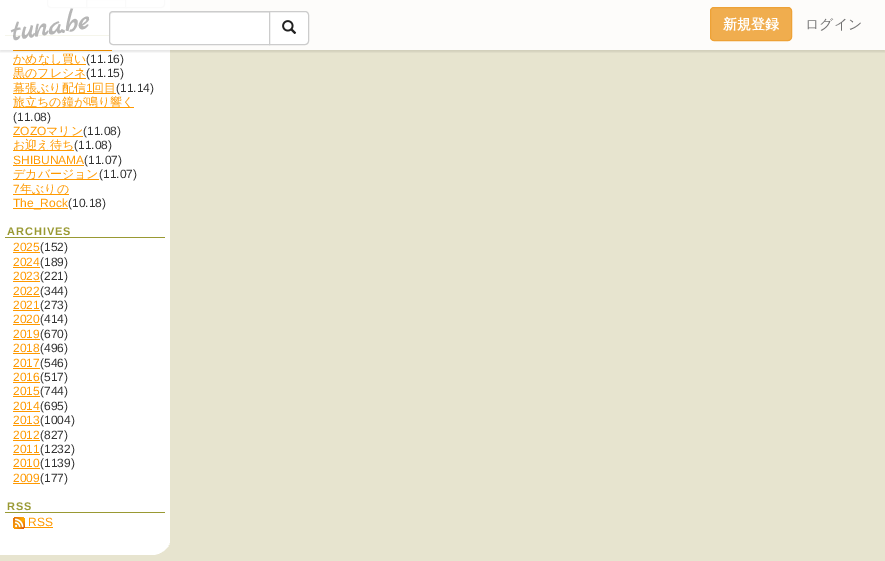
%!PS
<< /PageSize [885 561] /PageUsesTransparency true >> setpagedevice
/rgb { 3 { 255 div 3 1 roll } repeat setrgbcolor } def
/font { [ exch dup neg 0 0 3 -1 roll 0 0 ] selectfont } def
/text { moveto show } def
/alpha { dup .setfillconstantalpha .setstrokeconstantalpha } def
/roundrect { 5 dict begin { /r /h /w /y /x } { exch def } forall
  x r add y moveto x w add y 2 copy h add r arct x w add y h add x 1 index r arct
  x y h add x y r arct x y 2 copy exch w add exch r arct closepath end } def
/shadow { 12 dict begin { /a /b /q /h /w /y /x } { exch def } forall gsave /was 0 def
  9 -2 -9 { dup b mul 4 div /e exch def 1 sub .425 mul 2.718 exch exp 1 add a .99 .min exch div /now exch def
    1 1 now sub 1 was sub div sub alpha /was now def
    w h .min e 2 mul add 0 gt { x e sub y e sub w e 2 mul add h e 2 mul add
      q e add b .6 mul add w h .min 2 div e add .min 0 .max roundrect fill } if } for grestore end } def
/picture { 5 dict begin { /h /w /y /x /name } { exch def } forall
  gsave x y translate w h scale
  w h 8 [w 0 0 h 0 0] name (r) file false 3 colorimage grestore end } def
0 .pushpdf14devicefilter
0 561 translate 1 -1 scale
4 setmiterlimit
231 228 207 rgb
0 0 885 561 rectfill
255 255 255 rgb
0 0 170 535 rectfill
204 204 204 rgb
51 -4.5 moveto 35.5 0 rlineto 0 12 rlineto -35.5 0 rlineto -2 0 -3.5 -1.5 -3.5 -3.5 rcurveto 0 -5 rlineto 0 -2 1.5 -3.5 3.5 -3.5 rcurveto closepath stroke
255 255 255 rgb
86 0 1 7 rectfill
204 204 204 rgb
86.5 -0.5 39 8 rectstroke
255 255 255 rgb
125.5 -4.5 moveto 35.5 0 rlineto 2 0 3.5 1.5 3.5 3.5 rcurveto 0 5 rlineto 0 2 -1.5 3.5 -3.5 3.5 rcurveto -35.5 0 rlineto closepath gsave fill grestore
204 204 204 rgb
stroke
153 153 51 rgb
5 35 104 1 rectfill
255 153 0 rgb
13 50 99 1 rectfill
gsave
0 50 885 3 rectclip
0 0 0 rgb
0 2 885 50 0 1 0.1 shadow
grestore
0.9 alpha
255 255 255 rgb
5 0 880 50 rectfill
1 alpha
113 11 moveto 157 0 rlineto 0 34 rlineto -157 0 rlineto -2 0 -4 -2 -4 -4 rcurveto 0 -26 rlineto 0 -2 2 -4 4 -4 rcurveto closepath fill
236 236 236 rgb
113 13 moveto 156 0 rlineto 0 -1 rlineto -157 0 rlineto -2 0 -2 2 -2 4 rcurveto 0 -2 1 -3 3 -3 rcurveto closepath fill
204 204 204 rgb
113 11.5 moveto 156.5 0 rlineto 0 33 rlineto -156.5 0 rlineto -2 0 -3.5 -1.5 -3.5 -3.5 rcurveto 0 -26 rlineto 0 -2 1.5 -3.5 3.5 -3.5 rcurveto closepath stroke
255 255 255 rgb
269.5 11.5 moveto 35.5 0 rlineto 2 0 3.5 1.5 3.5 3.5 rcurveto 0 26 rlineto 0 2 -1.5 3.5 -3.5 3.5 rcurveto -35.5 0 rlineto closepath gsave fill grestore
204 204 204 rgb
stroke
(img_01.rgb) 282 20 15 14 picture
240 173 78 rgb
710.5 7.5 81 33 3.5 roundrect gsave fill grestore
238 162 54 rgb
stroke
255 153 0 rgb
13 64 73 1 rectfill
13 78 73 1 rectfill
13 93 103 1 rectfill
13 107 121 1 rectfill
13 136 70 1 rectfill
13 150 61 1 rectfill
13 165 71 1 rectfill
13 179 86 1 rectfill
13 194 56 1 rectfill
13 208 55 1 rectfill
153 153 51 rgb
5 237 160 1 rectfill
255 153 0 rgb
13 252 27 1 rectfill
13 267 27 1 rectfill
13 281 27 1 rectfill
13 296 27 1 rectfill
13 310 27 1 rectfill
13 324 27 1 rectfill
13 339 27 1 rectfill
13 353 27 1 rectfill
13 368 27 1 rectfill
13 382 27 1 rectfill
13 396 27 1 rectfill
13 411 27 1 rectfill
13 425 27 1 rectfill
13 440 27 1 rectfill
13 454 27 1 rectfill
13 468 27 1 rectfill
13 483 27 1 rectfill
153 153 51 rgb
5 512 160 1 rectfill
(img_02.rgb) 13 517 12 12 picture
255 153 0 rgb
25 527 28 1 rectfill
(img_03.rgb) 0 535 170 20 picture
gsave
6.5 7.5 moveto 78.5 -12.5 rlineto 8 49.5 rlineto -78.5 12.5 rlineto closepath clip newpath
/MarckScript-Bold 30 font
182 182 182 rgb
gsave 12 41 translate -9 rotate 0 0 moveto (tuna.be) show grestore
grestore
/WenQuanYiZenHei-Bold 14 font
255 255 255 rgb
(新規登録) 723 29 text
/WenQuanYiZenHei-Medium 14 font
114 114 114 rgb
(ログイン) 805 29 text
/WenQuanYiZenHei-Medium 12 font
255 153 0 rgb
(かめなし買い) 13 63 text
/LiberationSans-Regular 12 font
51 51 51 rgb
(\(11.16\)) 86 63 text
/WenQuanYiZenHei-Medium 12 font
255 153 0 rgb
(黒のフレシネ) 13 77 text
/LiberationSans-Regular 12 font
51 51 51 rgb
(\(11.15\)) 86 77 text
/WenQuanYiZenHei-Medium 12 font
255 153 0 rgb
(幕張ぶり配信) 13 92 text
/LiberationSans-Regular 12 font
(1) 86 92 text
/WenQuanYiZenHei-Medium 12 font
(回目) 92 92 text
/LiberationSans-Regular 12 font
51 51 51 rgb
(\(11.14\)) 116 92 text
/WenQuanYiZenHei-Medium 12 font
255 153 0 rgb
(旅立ちの鐘が鳴り響く) 13 106 text
/LiberationSans-Regular 12 font
51 51 51 rgb
(\(11.08\)) 13 121 text
255 153 0 rgb
(ZOZO) 13 135 text
/WenQuanYiZenHei-Medium 12 font
(マリン) 46 135 text
/LiberationSans-Regular 12 font
51 51 51 rgb
(\(11.08\)) 83 135 text
/WenQuanYiZenHei-Medium 12 font
255 153 0 rgb
(お迎え待ち) 13 149 text
/LiberationSans-Regular 12 font
51 51 51 rgb
(\(11.08\)) 74 149 text
255 153 0 rgb
(SHIBUNAMA) 13 164 text
51 51 51 rgb
(\(11.07\)) 84 164 text
/WenQuanYiZenHei-Medium 12 font
255 153 0 rgb
(デカバージョン) 13 178 text
/LiberationSans-Regular 12 font
51 51 51 rgb
(\(11.07\)) 99 178 text
255 153 0 rgb
(7) 13 193 text
/WenQuanYiZenHei-Medium 12 font
(年ぶりの) 20 193 text
/LiberationSans-Regular 12 font
(The_Rock) 13 207 text
51 51 51 rgb
(\(10.18\)) 68 207 text
/LiberationSans-Bold 11 font
153 153 51 rgb
7 235 moveto 1 0 (ARCHIVES) ashow
/LiberationSans-Regular 12 font
255 153 0 rgb
(2025) 13 251 text
51 51 51 rgb
(\(152\)) 40 251 text
255 153 0 rgb
(2024) 13 266 text
51 51 51 rgb
(\(189\)) 40 266 text
255 153 0 rgb
(2023) 13 280 text
51 51 51 rgb
(\(221\)) 40 280 text
255 153 0 rgb
(2022) 13 295 text
51 51 51 rgb
(\(344\)) 40 295 text
255 153 0 rgb
(2021) 13 309 text
51 51 51 rgb
(\(273\)) 40 309 text
255 153 0 rgb
(2020) 13 323 text
51 51 51 rgb
(\(414\)) 40 323 text
255 153 0 rgb
(2019) 13 338 text
51 51 51 rgb
(\(670\)) 40 338 text
255 153 0 rgb
(2018) 13 352 text
51 51 51 rgb
(\(496\)) 40 352 text
255 153 0 rgb
(2017) 13 367 text
51 51 51 rgb
(\(546\)) 40 367 text
255 153 0 rgb
(2016) 13 381 text
51 51 51 rgb
(\(517\)) 40 381 text
255 153 0 rgb
(2015) 13 395 text
51 51 51 rgb
(\(744\)) 40 395 text
255 153 0 rgb
(2014) 13 410 text
51 51 51 rgb
(\(695\)) 40 410 text
255 153 0 rgb
(2013) 13 424 text
51 51 51 rgb
(\(1004\)) 40 424 text
255 153 0 rgb
(2012) 13 439 text
51 51 51 rgb
(\(827\)) 40 439 text
255 153 0 rgb
(2011) 13 453 text
51 51 51 rgb
(\(1232\)) 40 453 text
255 153 0 rgb
(2010) 13 467 text
51 51 51 rgb
(\(1139\)) 40 467 text
255 153 0 rgb
(2009) 13 482 text
51 51 51 rgb
(\(177\)) 40 482 text
/LiberationSans-Bold 11 font
153 153 51 rgb
7 510 moveto 1 0 (RSS) ashow
/LiberationSans-Regular 12 font
255 153 0 rgb
(RSS) 28 526 text
.poppdf14devicefilter showpage
